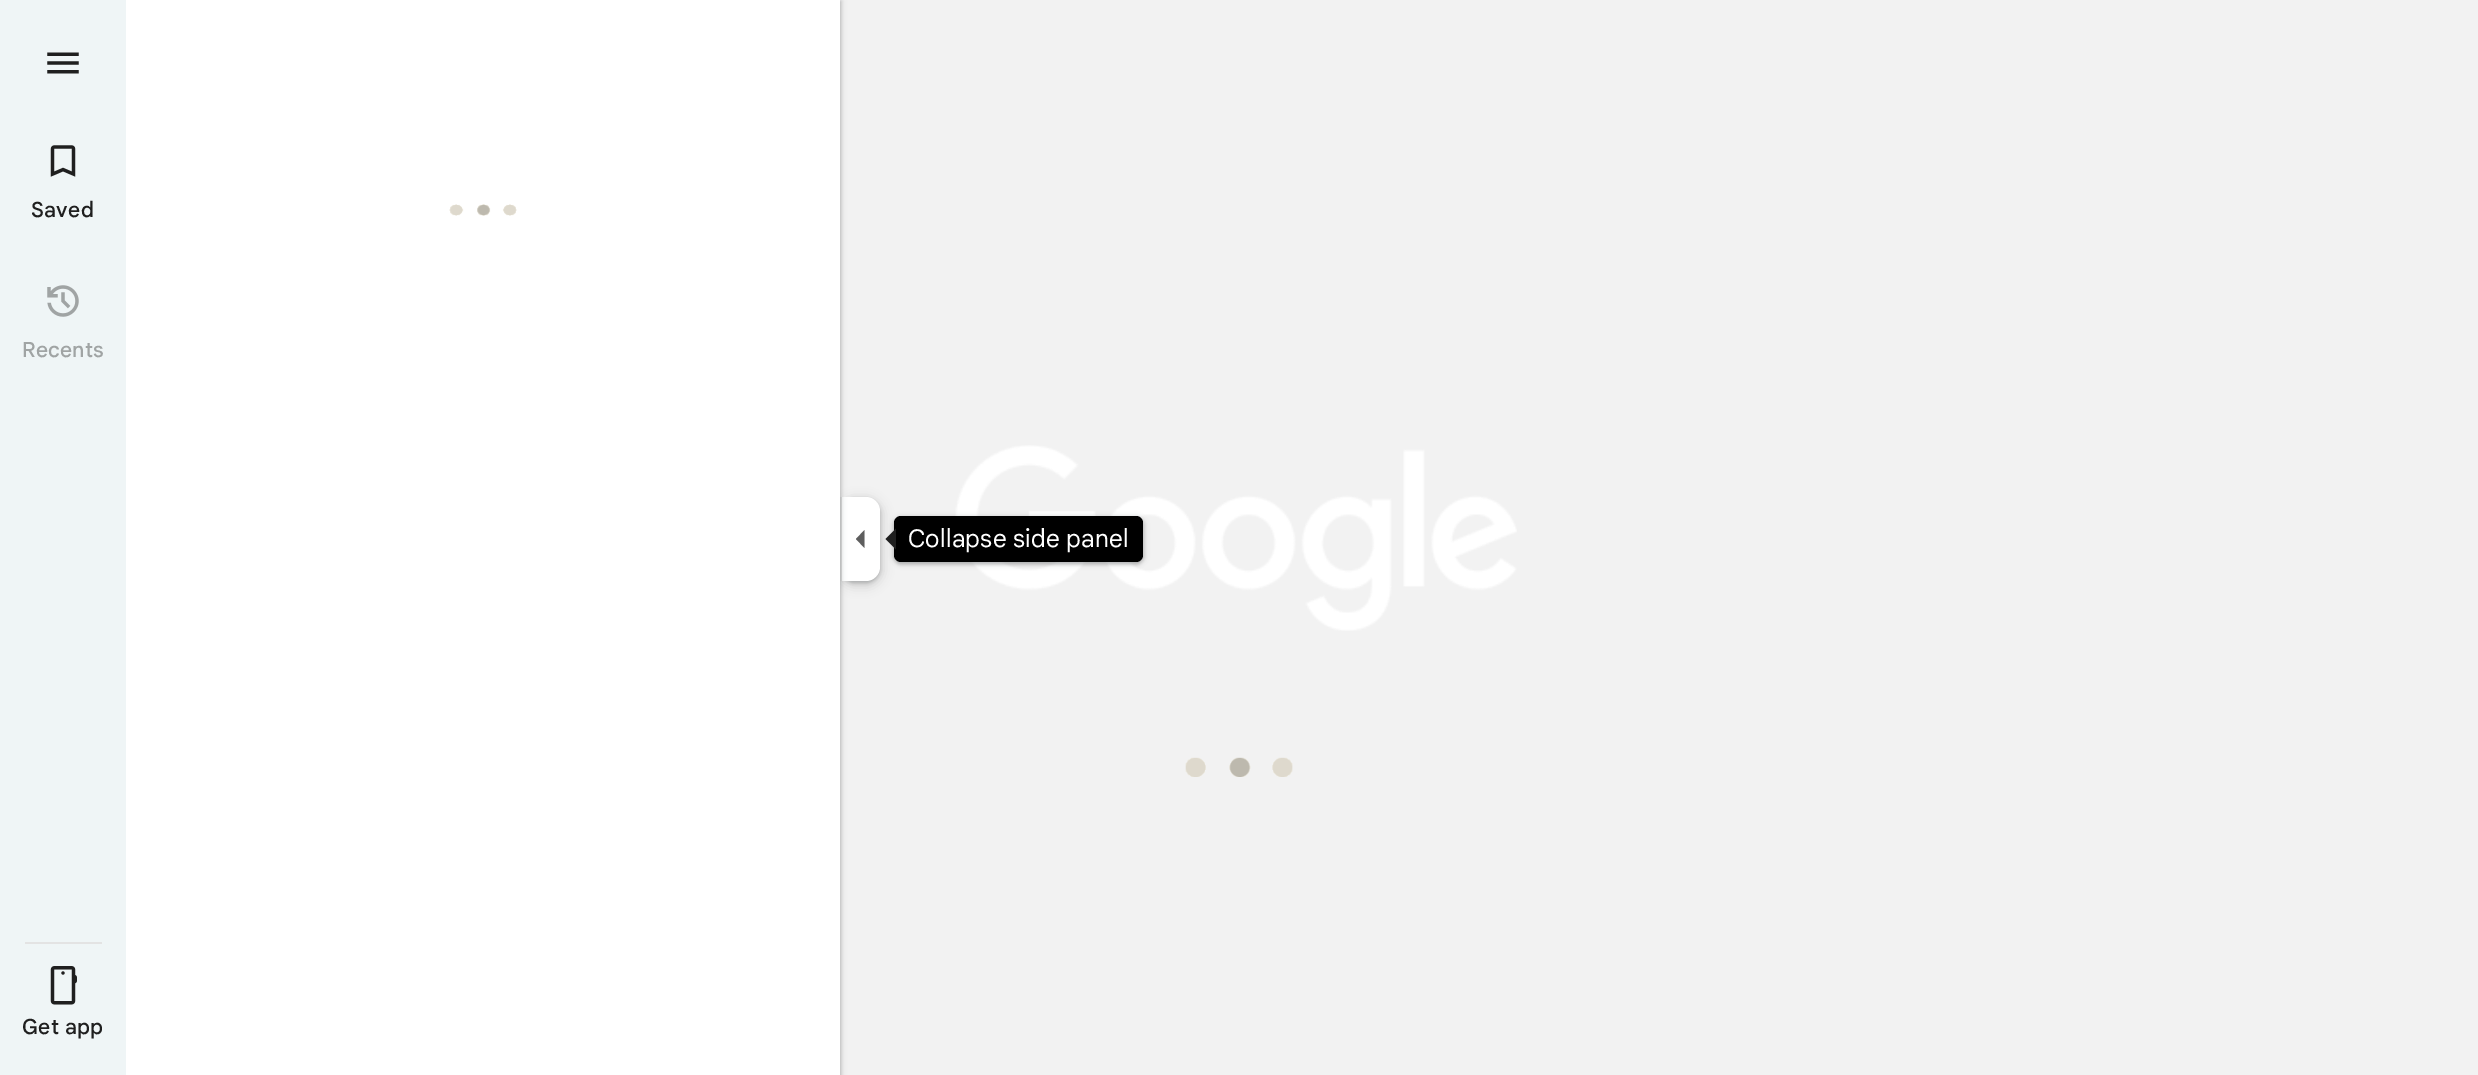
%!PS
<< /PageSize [2478 1075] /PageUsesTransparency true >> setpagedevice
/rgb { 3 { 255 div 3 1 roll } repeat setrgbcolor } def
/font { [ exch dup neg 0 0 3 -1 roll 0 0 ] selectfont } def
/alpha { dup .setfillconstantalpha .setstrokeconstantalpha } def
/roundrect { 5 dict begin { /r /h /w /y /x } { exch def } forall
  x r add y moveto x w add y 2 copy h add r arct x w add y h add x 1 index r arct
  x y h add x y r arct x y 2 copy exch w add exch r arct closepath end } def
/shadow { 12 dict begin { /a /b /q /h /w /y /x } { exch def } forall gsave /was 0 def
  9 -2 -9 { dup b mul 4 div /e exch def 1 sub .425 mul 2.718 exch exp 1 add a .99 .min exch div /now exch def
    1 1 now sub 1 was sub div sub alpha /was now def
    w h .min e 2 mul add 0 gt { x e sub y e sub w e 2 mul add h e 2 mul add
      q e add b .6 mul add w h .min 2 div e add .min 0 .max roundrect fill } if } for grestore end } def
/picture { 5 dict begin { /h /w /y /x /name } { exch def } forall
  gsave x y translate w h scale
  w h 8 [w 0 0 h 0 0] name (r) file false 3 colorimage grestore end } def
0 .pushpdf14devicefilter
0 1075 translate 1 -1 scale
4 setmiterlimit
242 242 242 rgb
0 0 2478 1075 rectfill
60 64 67 rgb
837 497 47 91 18 5 0.15 shadow
840 499 40 84 14 2 0.3 shadow
255 255 255 rgb
840 497 moveto 26 0 rlineto 7.5 0 14 6.5 14 14 rcurveto 0 56 rlineto 0 7.5 -6.5 14 -14 14 rcurveto -26 0 rlineto closepath fill
227 227 227 rgb
840 497 2 84 rectfill
60 64 67 rgb
124 0 718 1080 0 2.5 0.15 shadow
126 2 714 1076 0 2 0.3 shadow
239 245 246 rgb
0 0 126 1075 rectfill
(img_01.rgb) 47 52 32 22 picture
(img_02.rgb) 50 145 26 32 picture
(img_03.rgb) 47 285 32 32 picture
227 227 227 rgb
25 942 77 2 rectfill
(img_04.rgb) 50 966 27 39 picture
255 255 255 rgb
126 0 714 1075 rectfill
(img_05.rgb) 449 204 68 12 picture
94 94 94 rgb
864.5 548 moveto -8.5 -9 rlineto 8.5 -9 rlineto closepath fill
(img_06.rgb) 955 445 562 186 picture
60 64 67 rgb
893 516 252 49 9 2.5 0.15 shadow
894 518 249 46 7 2 0.3 shadow
0 0 0 rgb
894 516 249 46 7 roundrect fill
31 31 31 rgb
896 528.5 moveto 0 21 rlineto -10.5 -10.5 rlineto closepath fill
(img_07.rgb) 1185 757 108 20 picture
/GoogleSans-Medium 21 font
31 217 moveto 0.25 0 (Saved) ashow
160 164 164 rgb
22 357 moveto 0.25 0 (Recents) ashow
31 31 31 rgb
22 1034 moveto 0.25 0 (Get app) ashow
/GoogleSans-Regular 24.5 font
255 255 255 rgb
908 547 moveto 0.2 0 (Collapse side panel) ashow
.poppdf14devicefilter showpage
